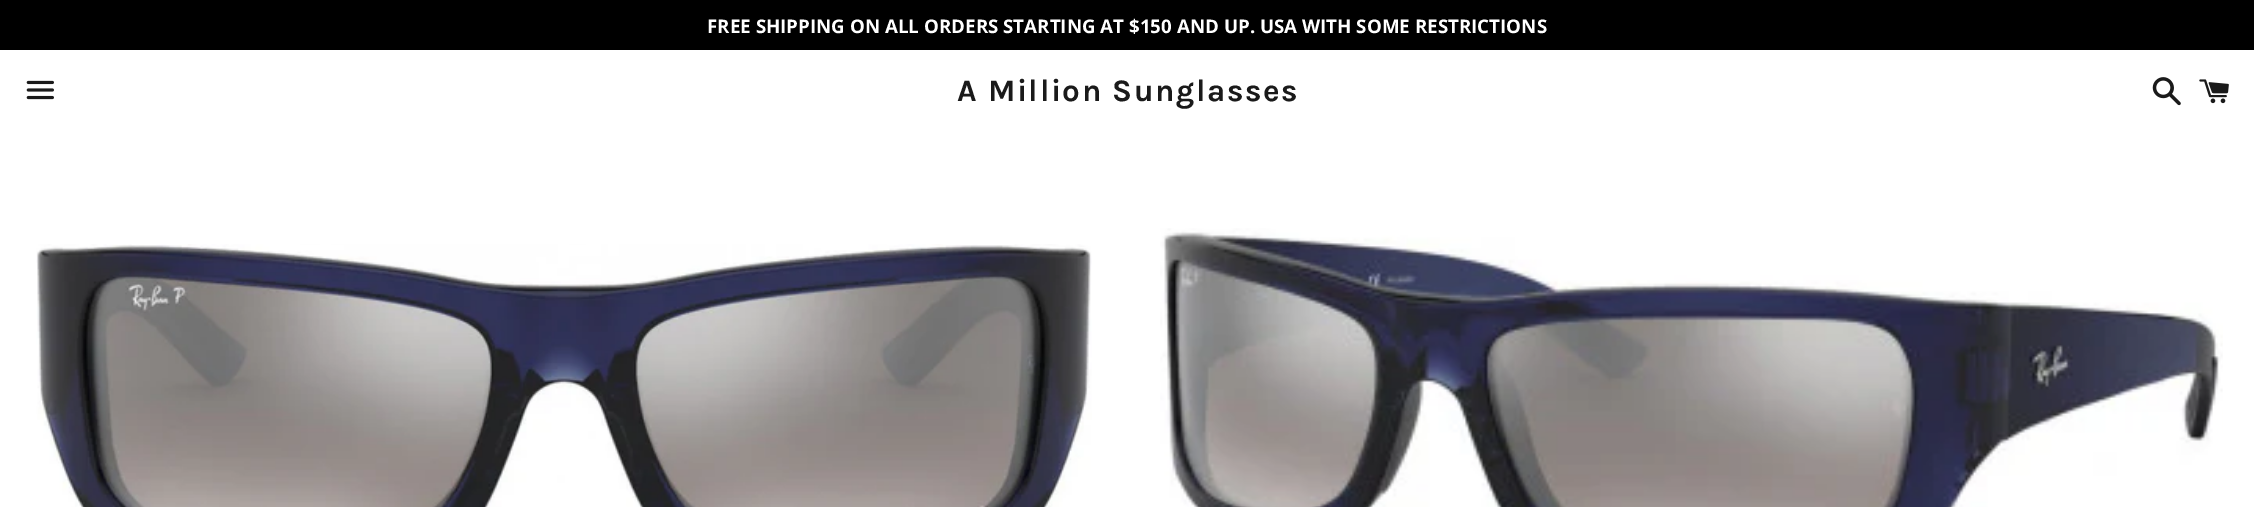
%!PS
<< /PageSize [2254 507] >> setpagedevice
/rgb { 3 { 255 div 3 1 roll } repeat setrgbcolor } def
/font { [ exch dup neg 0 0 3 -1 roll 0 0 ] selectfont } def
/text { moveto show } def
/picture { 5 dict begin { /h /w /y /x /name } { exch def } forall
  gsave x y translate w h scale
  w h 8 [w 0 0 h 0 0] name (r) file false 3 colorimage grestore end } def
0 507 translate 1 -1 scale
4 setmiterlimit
255 255 255 rgb
0 0 2254 507 rectfill
0 0 0 rgb
0 0 2254 50 rectfill
(img_01.rgb) 26 80 28 20 picture
(img_02.rgb) 2152 77 29 29 picture
(img_03.rgb) 2199 79 30 25 picture
(img_04.rgb) 36 244 1056 263 picture
(img_05.rgb) 1160 228 1063 279 picture
/OpenSans-Bold 18.75 font
255 255 255 rgb
(FREE SHIPPING ON ALL ORDERS STARTING AT $150 AND UP. USA WITH SOME RESTRICTIONS) 707 33 text
/Karla-Bold 31.25 font
26 26 26 rgb
957 101 moveto 1.6 0 (A Million Sunglasses) ashow
showpage
